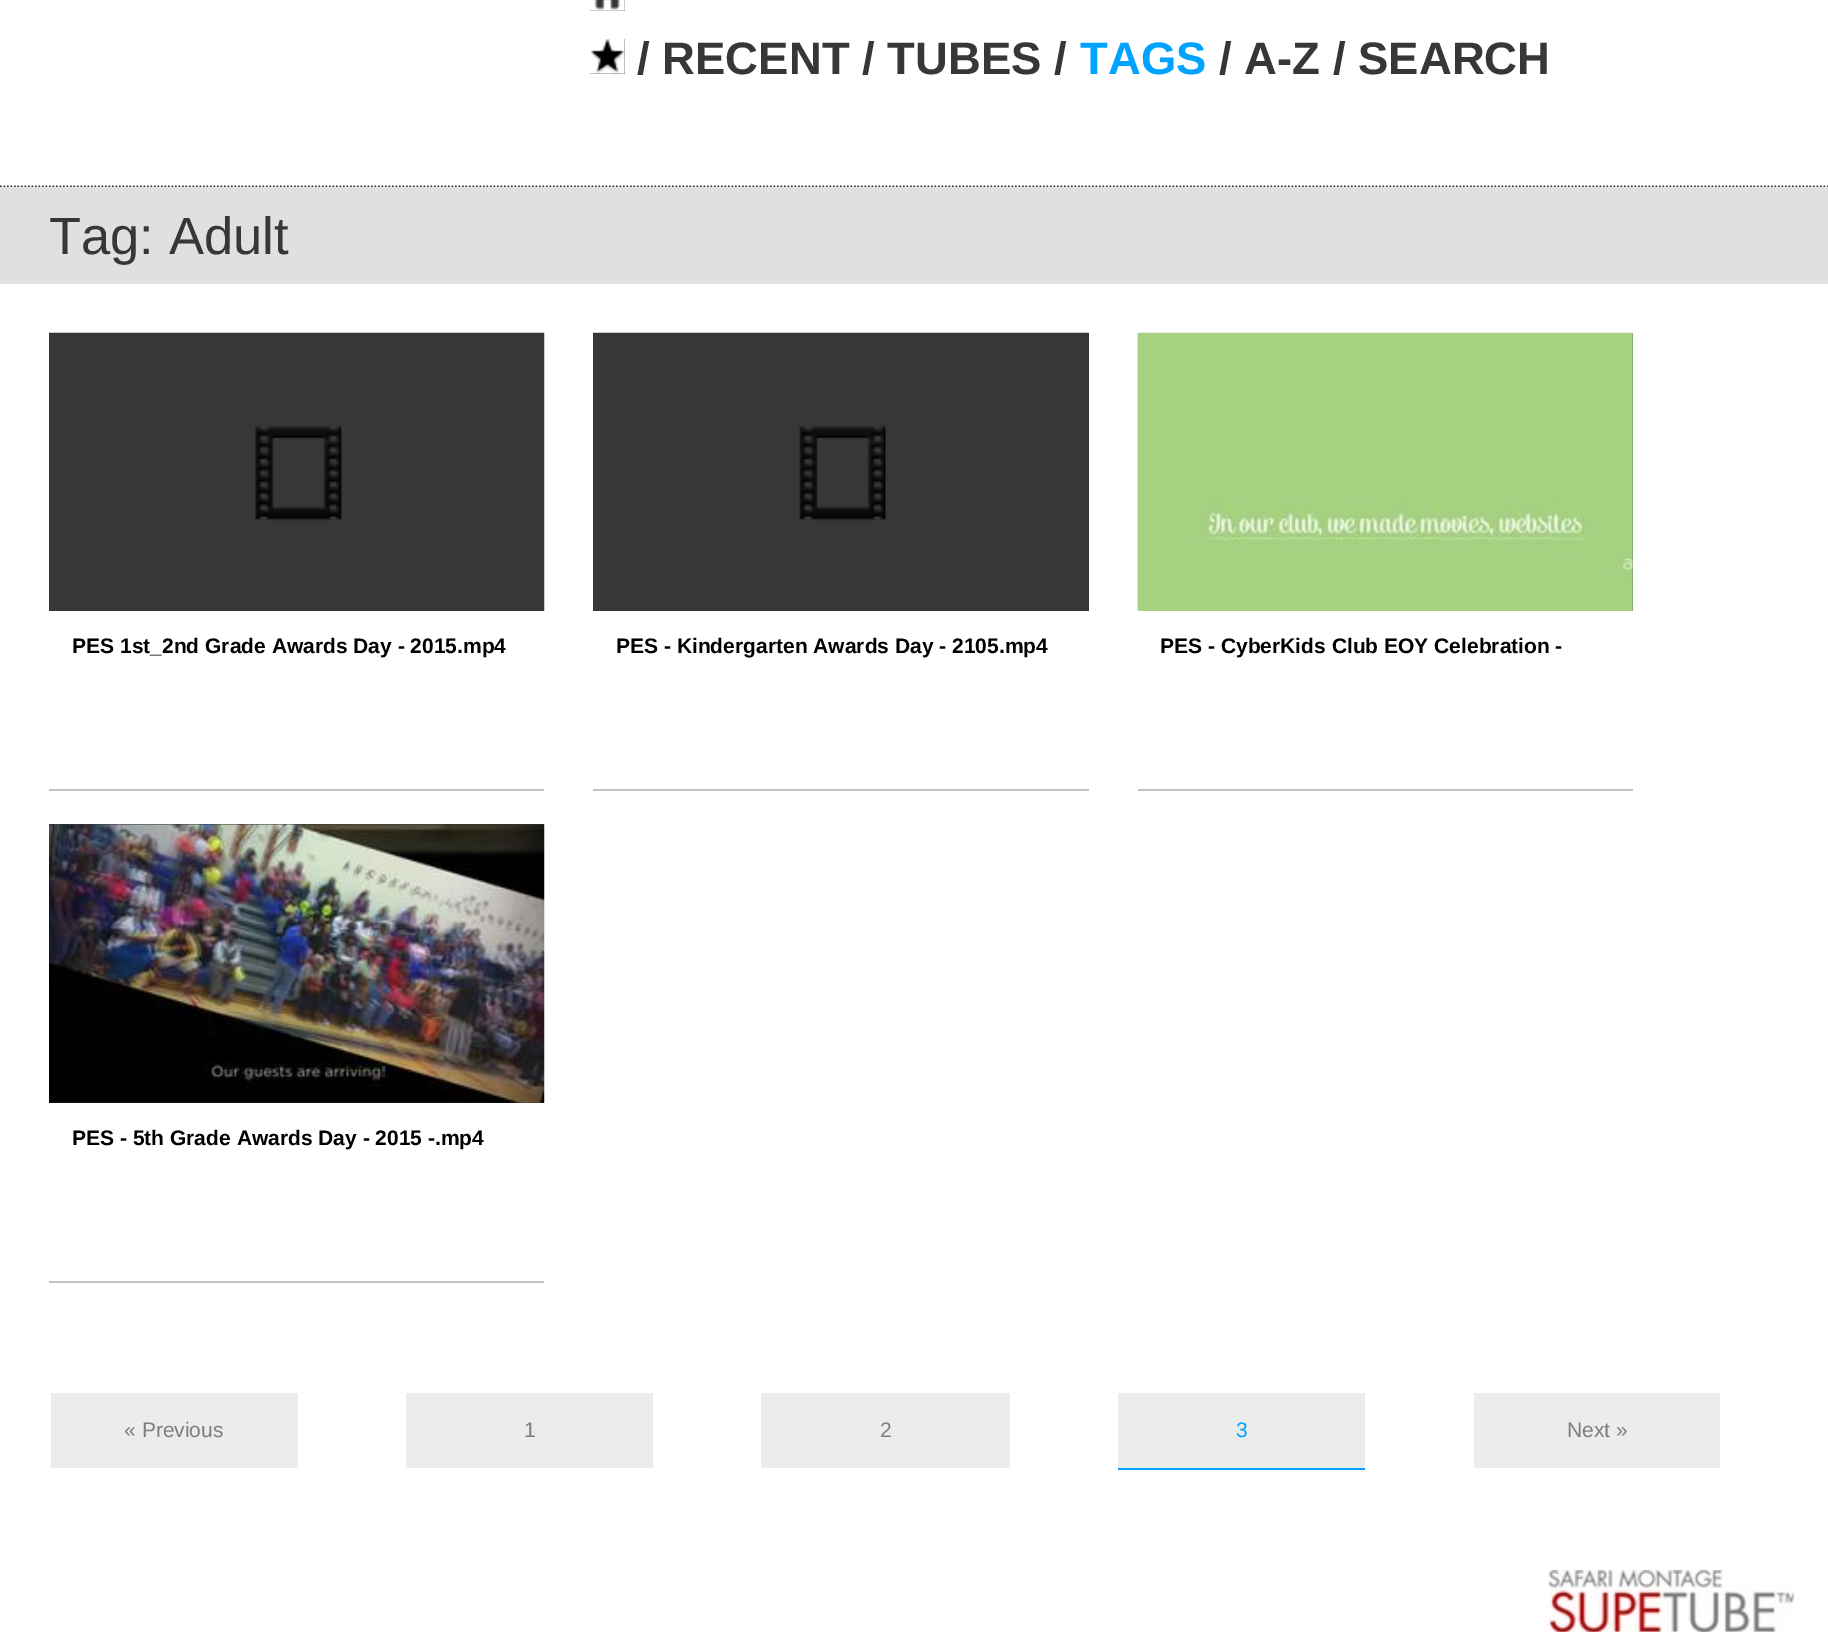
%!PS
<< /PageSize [1828 1632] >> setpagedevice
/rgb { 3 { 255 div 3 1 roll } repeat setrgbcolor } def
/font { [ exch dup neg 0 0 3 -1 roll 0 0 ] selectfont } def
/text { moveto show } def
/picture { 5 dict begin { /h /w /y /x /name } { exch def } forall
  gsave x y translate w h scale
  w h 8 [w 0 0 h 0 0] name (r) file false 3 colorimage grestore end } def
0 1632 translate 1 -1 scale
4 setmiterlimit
255 255 255 rgb
0 0 1828 1632 rectfill
55 55 55 rgb
1.8 setlinewidth
[1.75 1.75] 0 setdash
0 186.5 moveto 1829 0 rlineto stroke
590 0 35 11 rectfill
(img_01.rgb) 590 0 35 11 picture
0 0 0 rgb
590 39 35 35 rectfill
(img_02.rgb) 590 39 35 35 picture
224 224 223 rgb
0 187 1828 97 rectfill
(img_03.rgb) 49 332 496 279 picture
195 195 195 rgb
49 789 495 2 rectfill
55 55 55 rgb
593 333 496 278 rectfill
(img_04.rgb) 593 332 496 189 picture
195 195 195 rgb
593 789 496 2 rectfill
(img_05.rgb) 1137 332 496 279 picture
1138 789 495 2 rectfill
55 55 55 rgb
49 824 495 279 rectfill
(img_06.rgb) 49 824 496 279 picture
195 195 195 rgb
49 1281 495 2 rectfill
235 237 234 rgb
51 1393 247 75 rectfill
406 1393 247 75 rectfill
761 1393 249 75 rectfill
1118 1393 247 75 rectfill
0 162 255 rgb
1118 1468 247 2 rectfill
235 237 234 rgb
1474 1393 246 75 rectfill
(img_07.rgb) 1548 1570 246 62 picture
/LiberationSans-Bold 45.5 font
55 55 55 rgb
(/ RECENT / TUBES /) 637 74 text
0 162 255 rgb
(TAGS) 1080 74 text
55 55 55 rgb
(/ A-Z / SEARCH) 1219 74 text
/LiberationSans-Regular 52.5 font
(Tag: Adult) 49 254 text
/LiberationSans-Bold 21 font
0 0 0 rgb
(PES 1st_2nd Grade Awards Day - 2015.mp4) 72 653 text
(PES - Kindergarten Awards Day - 2105.mp4) 616 653 text
(PES - CyberKids Club EOY Celebration -) 1160 653 text
(PES - 5th Grade Awards Day - 2015 -.mp4) 72 1145 text
/LiberationSans-Regular 21 font
125 125 125 rgb
(« Previous) 124 1437 text
(1) 524 1437 text
(2) 880 1437 text
0 162 255 rgb
(3) 1236 1437 text
125 125 125 rgb
(Next ») 1567 1437 text
showpage
